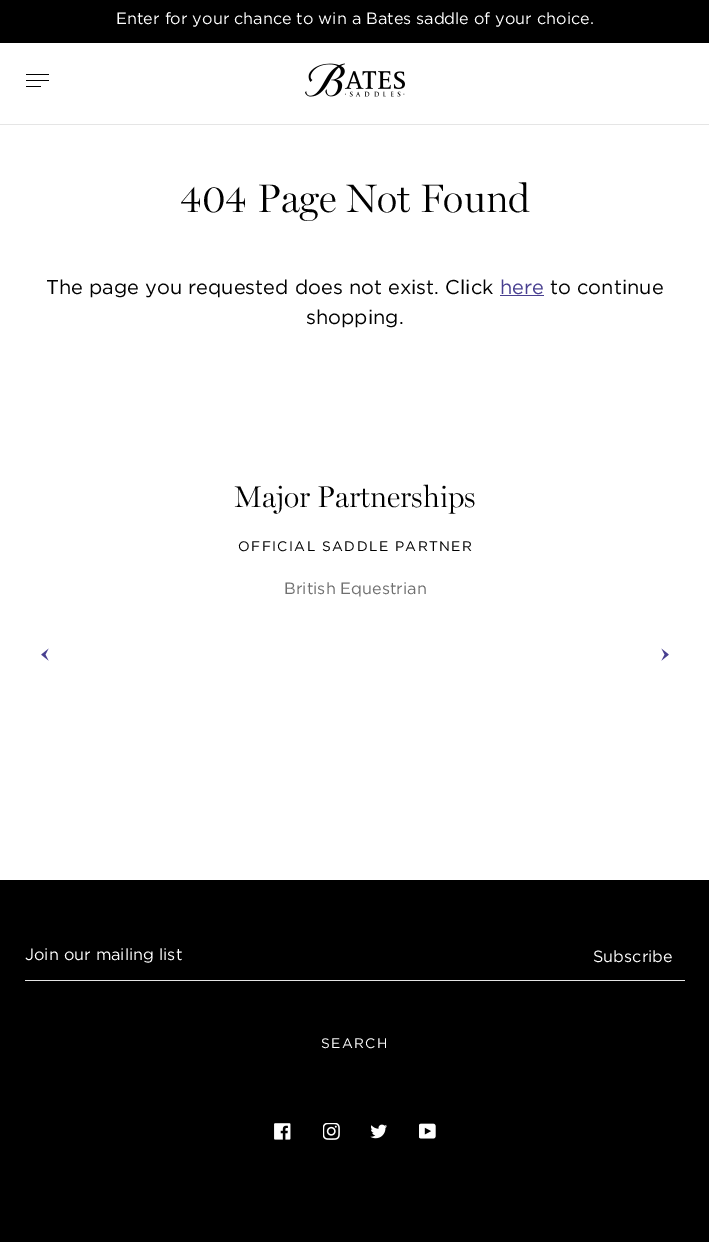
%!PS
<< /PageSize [709 1242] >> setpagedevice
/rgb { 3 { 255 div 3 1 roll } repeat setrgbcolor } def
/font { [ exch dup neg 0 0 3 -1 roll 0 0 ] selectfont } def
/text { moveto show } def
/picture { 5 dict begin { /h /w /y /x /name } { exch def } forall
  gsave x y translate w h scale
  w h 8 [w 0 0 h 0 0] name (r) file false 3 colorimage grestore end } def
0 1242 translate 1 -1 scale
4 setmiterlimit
255 255 255 rgb
0 0 709 1242 rectfill
0 0 0 rgb
0 0 709 43 rectfill
229 229 229 rgb
0 124 709 1 rectfill
0 0 0 rgb
26 74 23 1 rectfill
26 80 23 1 rectfill
26 86 15 1 rectfill
(img_01.rgb) 305 63 100 34 picture
72 63 144 rgb
500 295 44 1 rectfill
(img_02.rgb) 41 648 8 13 picture
(img_03.rgb) 661 648 8 13 picture
0 0 0 rgb
0 880 709 362 rectfill
229 229 229 rgb
25 980 660 1 rectfill
(img_04.rgb) 274 1123 17 17 picture
(img_05.rgb) 323 1123 17 17 picture
(img_06.rgb) 370 1124 17 15 picture
(img_07.rgb) 419 1123 17 16 picture
/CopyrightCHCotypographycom-Light 16.25 font
255 255 255 rgb
(Enter for your chance to win a Bates saddle of your choice.) 116 24 text
/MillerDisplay-Light 40 font
0 0 0 rgb
(404 Page Not Found) 180 212 text
/CopyrightCHCotypographycom-Light 20 font
(The page you requested does not exist. Click) 46 294 text
72 63 144 rgb
(here) 500 294 text
0 0 0 rgb
(to continue) 550 294 text
(shopping.) 306 324 text
/MillerDisplay-Light 30 font
(Major Partnerships) 234 507 text
/CopyrightCHCotypographycom-Light 13.75 font
238 551 moveto 1.4 0 (OFFICIAL SADDLE PARTNER) ashow
/CopyrightCHCotypographycom-Light 16.25 font
112 112 112 rgb
(British Equestrian) 284 594 text
255 255 255 rgb
(Join our mailing list) 25 960 text
(Subscribe) 593 962 text
/CopyrightCHCotypographycom-Light 13.75 font
321 1048 moveto 1.4 0 (SEARCH) ashow
showpage
